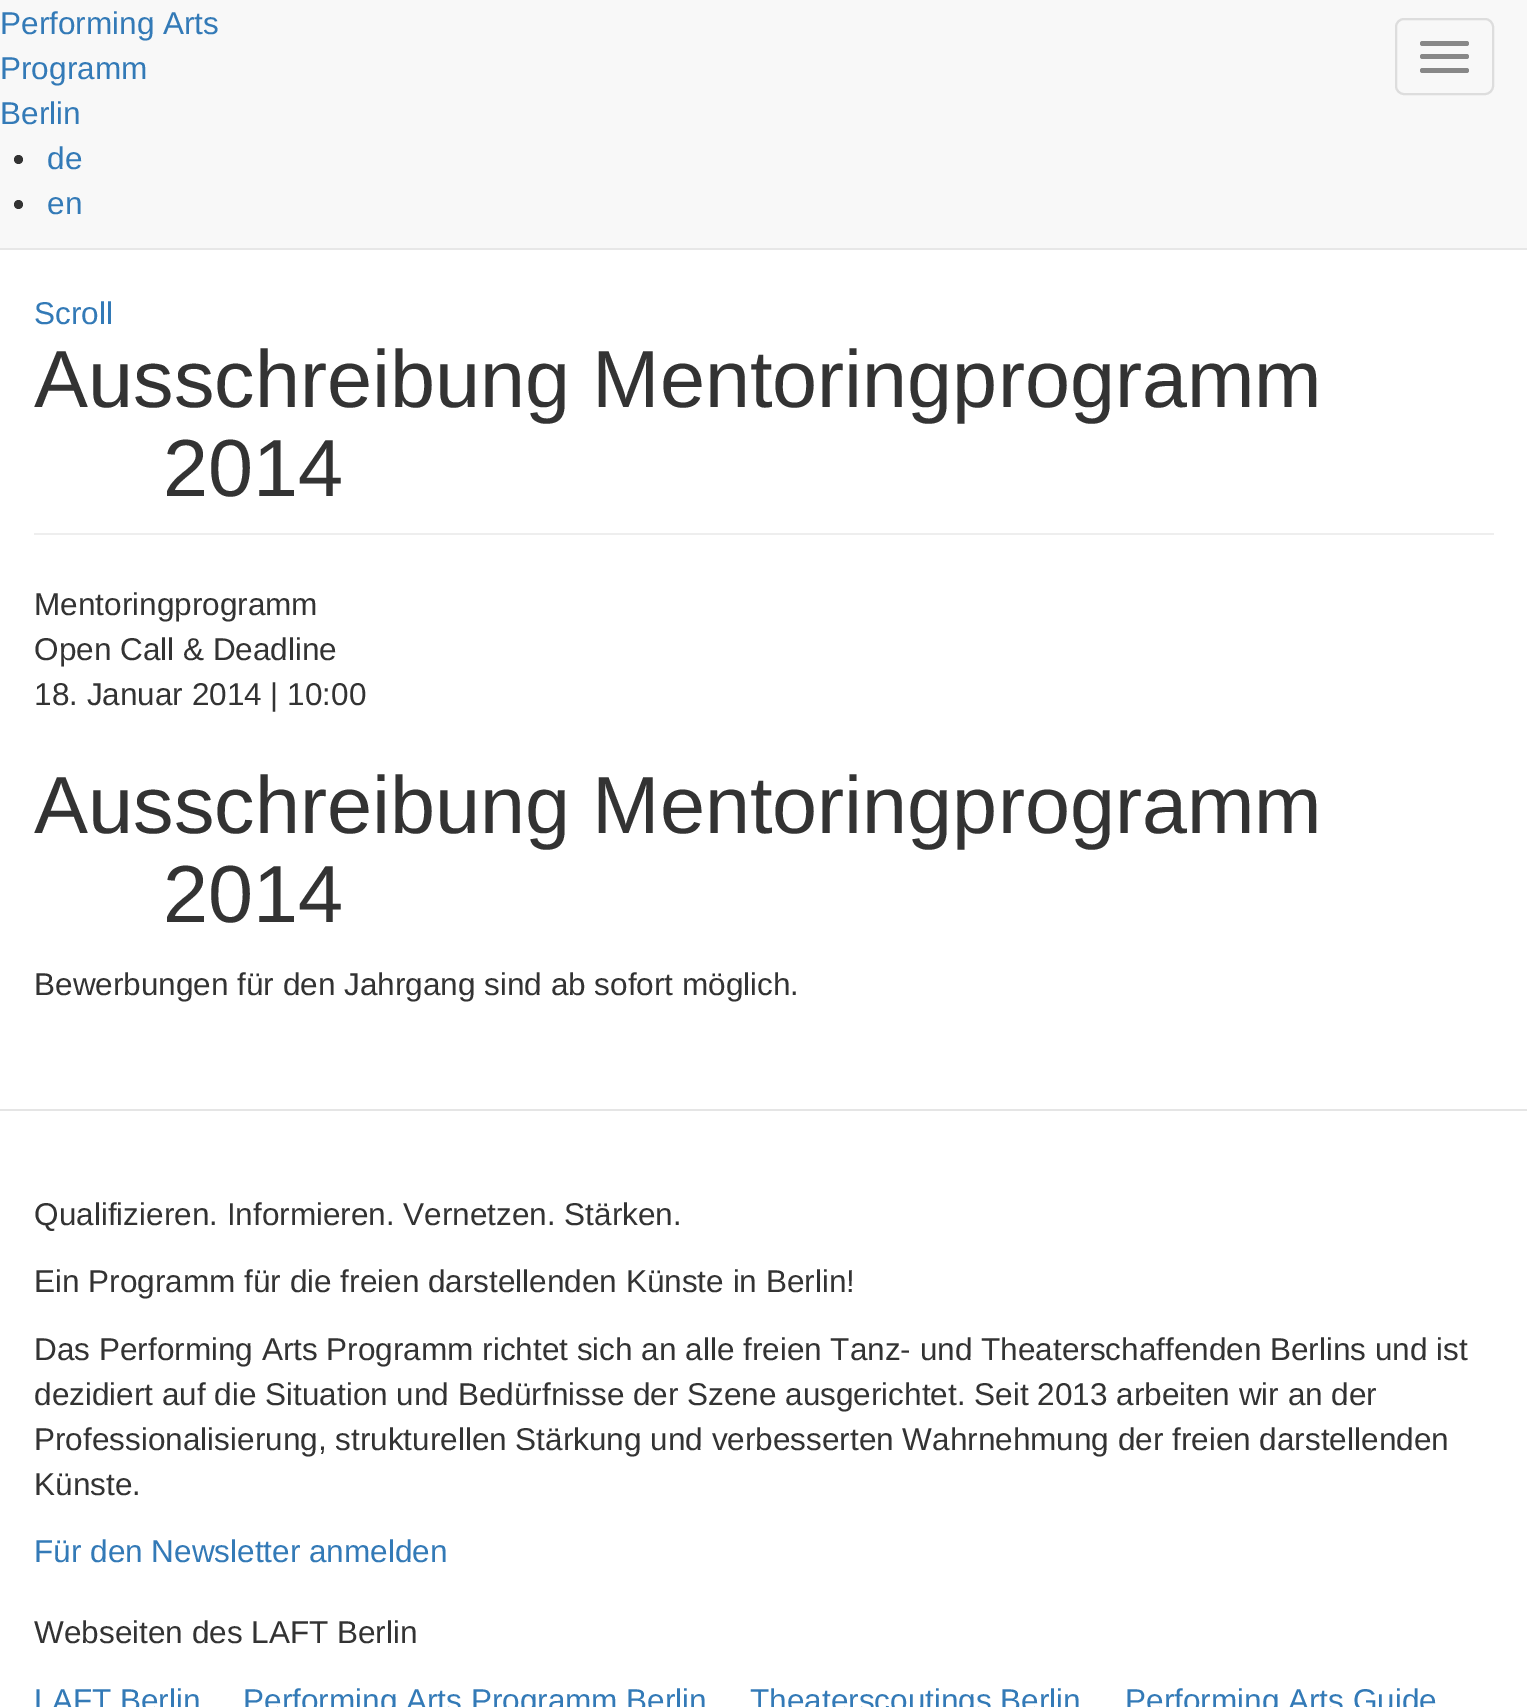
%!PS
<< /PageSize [1527 1707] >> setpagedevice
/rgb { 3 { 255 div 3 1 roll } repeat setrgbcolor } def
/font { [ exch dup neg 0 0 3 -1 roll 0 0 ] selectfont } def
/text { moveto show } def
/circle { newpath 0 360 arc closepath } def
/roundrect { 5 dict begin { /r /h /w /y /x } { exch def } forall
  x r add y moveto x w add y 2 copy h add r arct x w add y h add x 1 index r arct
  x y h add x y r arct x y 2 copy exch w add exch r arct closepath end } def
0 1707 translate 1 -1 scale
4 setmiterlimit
255 255 255 rgb
0 0 1527 1707 rectfill
248 248 248 rgb
0 0 1527 248 rectfill
231 231 231 rgb
0 248 1527 2 rectfill
51 51 51 rgb
18.5 159.5 4.5 circle fill
18.5 204.5 4.5 circle fill
221 221 221 rgb
2 setlinewidth
1396 19 97 75 8 roundrect stroke
136 136 136 rgb
1420 41 49 5 2.5 roundrect fill
1420 54 49 5 2.5 roundrect fill
1420 68 49 5 2.5 roundrect fill
238 238 238 rgb
34 533 1460 2 rectfill
229 229 229 rgb
0 1109 1527 2 rectfill
/LiberationSans-Regular 31.5 font
51 122 183 rgb
(Performing Arts) 0 34 text
(Programm) 0 79 text
(Berlin) 0 124 text
(de) 47 169 text
(en) 47 214 text
(Scroll) 34 324 text
/LiberationSans-Regular 81 font
51 51 51 rgb
(Ausschreibung Mentoringprogramm) 34 407 text
(2014) 163 496 text
/LiberationSans-Regular 31.5 font
(Mentoringprogramm) 34 615 text
(Open Call & Deadline) 34 660 text
(18. Januar 2014 | 10:00) 34 705 text
/LiberationSans-Regular 81 font
(Ausschreibung Mentoringprogramm) 34 833 text
(2014) 163 922 text
/LiberationSans-Regular 31.5 font
(Bewerbungen für den Jahrgang sind ab sofort möglich.) 34 995 text
(Qualifizieren. Informieren. Vernetzen. Stärken.) 34 1225 text
(Ein Programm für die freien darstellenden Künste in Berlin!) 34 1292 text
(Das Performing Arts Programm richtet sich an alle freien Tanz- und Theaterschaffenden Berlins und ist) 34 1360 text
(dezidiert auf die Situation und Bedürfnisse der Szene ausgerichtet. Seit 2013 arbeiten wir an der) 34 1405 text
(Professionalisierung, strukturellen Stärkung und verbesserten Wahrnehmung der freien darstellenden) 34 1450 text
(Künste.) 34 1495 text
51 122 183 rgb
(Für den Newsletter anmelden) 34 1562 text
51 51 51 rgb
(Webseiten des LAFT Berlin) 34 1643 text
51 122 183 rgb
(LAFT Berlin) 34 1711 text
(Performing Arts Programm Berlin) 243 1711 text
(Theaterscoutings Berlin) 750 1711 text
(Performing Arts Guide) 1125 1711 text
showpage
